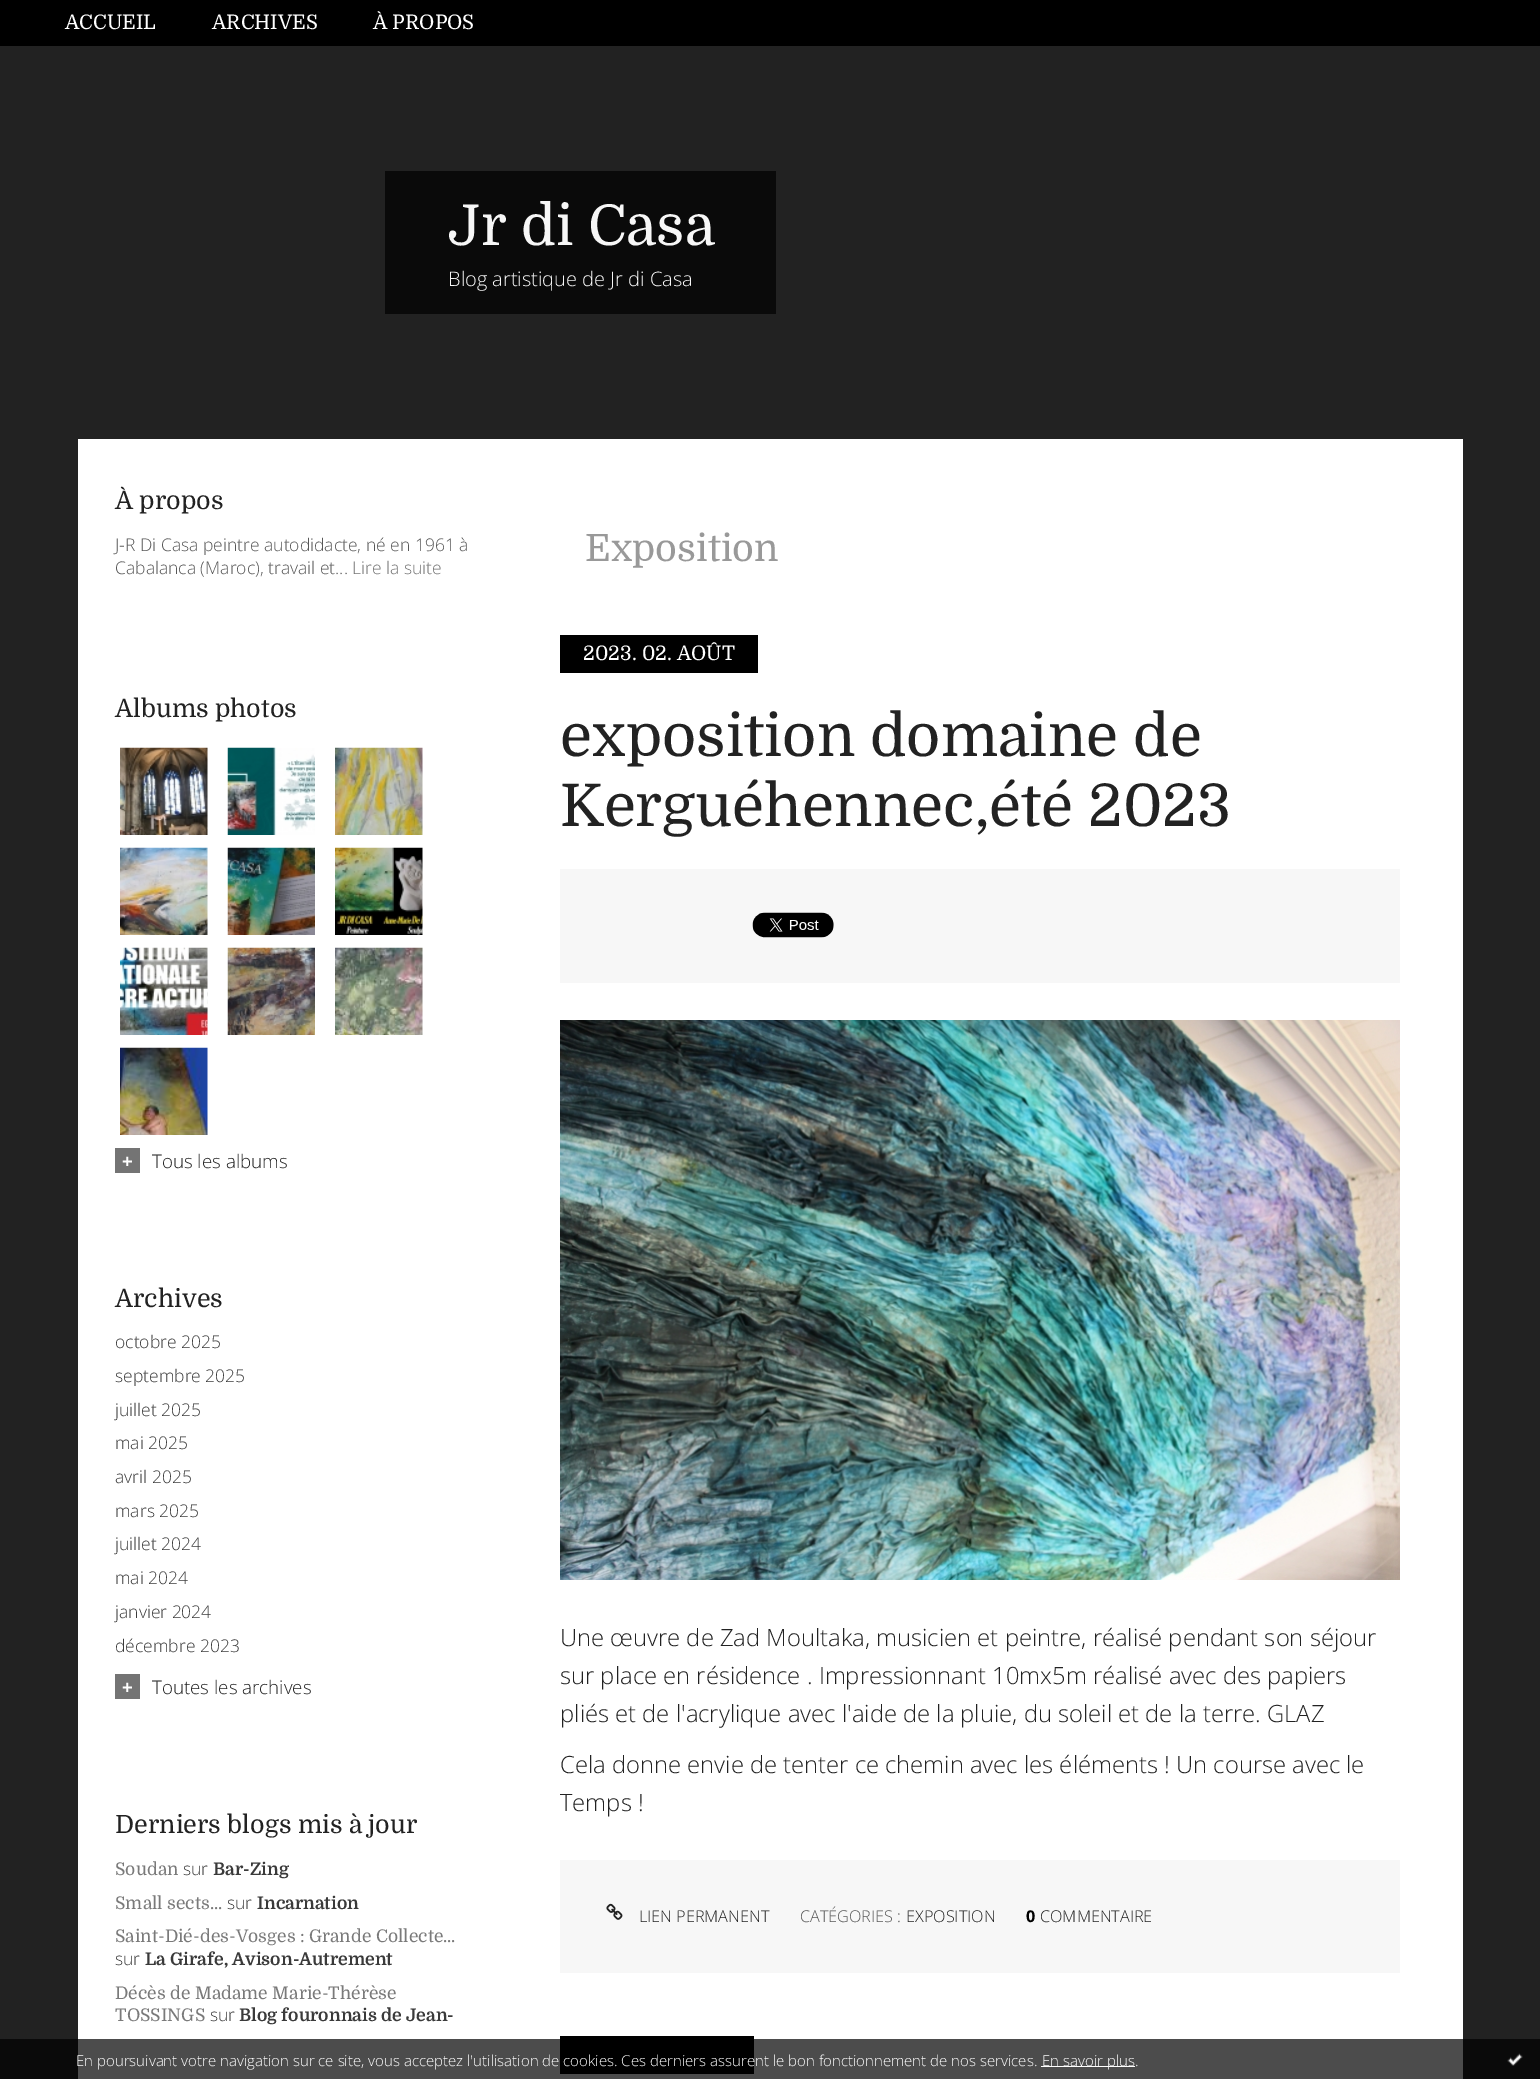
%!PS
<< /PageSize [1540 2079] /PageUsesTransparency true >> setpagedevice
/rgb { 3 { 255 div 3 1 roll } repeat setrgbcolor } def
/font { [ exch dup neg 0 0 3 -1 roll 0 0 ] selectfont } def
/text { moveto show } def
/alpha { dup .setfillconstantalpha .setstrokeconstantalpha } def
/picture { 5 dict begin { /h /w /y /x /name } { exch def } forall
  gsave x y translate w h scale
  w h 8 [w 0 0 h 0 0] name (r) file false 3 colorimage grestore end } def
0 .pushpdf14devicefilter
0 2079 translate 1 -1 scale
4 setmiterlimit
34 34 34 rgb
0 0 1540 2079 rectfill
0 0 0 rgb
0 0 1540 46 rectfill
10 10 10 rgb
385 171 391 143 rectfill
255 255 255 rgb
78 439 1385 1640 rectfill
(img_01.rgb) 120 747 88 88 picture
(img_02.rgb) 227 747 88 88 picture
(img_03.rgb) 335 747 88 88 picture
(img_04.rgb) 120 847 88 88 picture
(img_05.rgb) 227 847 88 88 picture
(img_06.rgb) 335 847 88 88 picture
(img_07.rgb) 120 947 88 88 picture
(img_08.rgb) 227 947 88 88 picture
(img_09.rgb) 335 947 88 88 picture
(img_10.rgb) 120 1047 88 88 picture
116 116 116 rgb
115 1148 25 25 rectfill
115 1674 25 25 rectfill
0 0 0 rgb
560 635 198 38 rectfill
247 247 247 rgb
560 869 840 114 rectfill
(img_11.rgb) 752 912 82 26 picture
(img_12.rgb) 560 1020 840 560 picture
560 1860 840 113 rectfill
(img_13.rgb) 606 1903 17 17 picture
0 0 0 rgb
560 2036 194 38 rectfill
0.7 alpha
0 2039 1540 40 rectfill
1 alpha
255 255 255 rgb
1041 2066 94 1 rectfill
(img_14.rgb) 1507 2053 16 13 picture
/Domine-Regular 20 font
(ACCUEIL) 65 29 text
(ARCHIVES) 212 29 text
(À PROPOS) 373 29 text
/Domine-Regular 56.25 font
247 247 247 rgb
(Jr di Casa) 448 245 text
/OpenSans-Light 20 font
(Blog artistique de Jr di Casa) 448 286 text
/Domine-Regular 25 font
34 34 34 rgb
(À propos) 115 509 text
/OpenSans-Light 17.5 font
87 87 87 rgb
(J-R Di Casa peintre autodidacte, né en 1961 à) 115 551 text
(Cabalanca \(Maroc\), travail et...) 115 574 text
116 116 116 rgb
(Lire la suite) 352 574 text
/Domine-Regular 25 font
34 34 34 rgb
(Albums photos) 115 717 text
/OpenSans-Bold 18.75 font
255 255 255 rgb
(+) 122 1168 text
/OpenSans-Light 18.75 font
34 34 34 rgb
(Tous les albums) 152 1168 text
/Domine-Regular 25 font
(Archives) 115 1307 text
/OpenSans-Light 17.5 font
58 58 58 rgb
(octobre 2025) 115 1348 text
(septembre 2025) 115 1382 text
(juillet 2025) 115 1416 text
(mai 2025) 115 1449 text
(avril 2025) 115 1483 text
(mars 2025) 115 1517 text
(juillet 2024) 115 1550 text
(mai 2024) 115 1584 text
(janvier 2024) 115 1618 text
(décembre 2023) 115 1652 text
/OpenSans-Bold 18.75 font
255 255 255 rgb
(+) 122 1694 text
/OpenSans-Light 18.75 font
34 34 34 rgb
(Toutes les archives) 152 1694 text
/Domine-Regular 25 font
(Derniers blogs mis à jour) 115 1833 text
/Domine-Regular 17.5 font
122 122 122 rgb
(Soudan) 115 1875 text
/OpenSans-Light 17.5 font
58 58 58 rgb
(sur) 183 1875 text
/Domine-Bold 17.5 font
(Bar-Zing) 213 1875 text
/Domine-Regular 17.5 font
122 122 122 rgb
(Small sects...) 115 1909 text
/OpenSans-Light 17.5 font
58 58 58 rgb
(sur) 227 1909 text
/Domine-Bold 17.5 font
(Incarnation) 257 1909 text
/Domine-Regular 17.5 font
122 122 122 rgb
(Saint-Dié-des-Vosges : Grande Collecte...) 115 1942 text
/OpenSans-Light 17.5 font
58 58 58 rgb
(sur) 115 1965 text
/Domine-Bold 17.5 font
(La Girafe, Avison-Autrement) 145 1965 text
/Domine-Regular 17.5 font
122 122 122 rgb
(Décès de Madame Marie-Thérèse) 115 1999 text
(TOSSINGS) 115 2021 text
/OpenSans-Light 17.5 font
58 58 58 rgb
(sur) 210 2021 text
/Domine-Bold 17.5 font
(Blog fouronnais de Jean-) 239 2021 text
/Domine-Regular 37.5 font
153 153 153 rgb
(Exposition) 585 561 text
/Domine-Regular 20 font
255 255 255 rgb
(2023. 02. AOÛT) 583 660 text
/Domine-Regular 58.75 font
34 34 34 rgb
(exposition domaine de) 560 756 text
(Kerguéhennec,été 2023) 560 826 text
/OpenSans-Light 23.75 font
(Une œuvre de Zad Moultaka, musicien et peintre, réalisé pendant son séjour) 560 1646 text
(sur place en résidence . Impressionnant 10mx5m réalisé avec des papiers) 560 1684 text
(pliés et de l'acrylique avec l'aide de la pluie, du soleil et de la terre. GLAZ) 560 1722 text
(Cela donne envie de tenter ce chemin avec les éléments ! Un course avec le) 560 1773 text
(Temps !) 560 1811 text
/OpenSans-Light 16.25 font
(LIEN PERMANENT) 639 1922 text
87 87 87 rgb
(CATÉGORIES :) 800 1922 text
34 34 34 rgb
(EXPOSITION) 906 1922 text
/OpenSans-Bold 16.25 font
0 0 0 rgb
(0) 1026 1922 text
/OpenSans-Light 16.25 font
34 34 34 rgb
(COMMENTAIRE) 1040 1922 text
/OpenSans-Light 15 font
255 255 255 rgb
(En poursuivant votre navigation sur ce site, vous acceptez l'utilisation de cookies. Ces derniers assurent le bon fonctionnement de nos services.) 76 2066 text
(En savoir plus.) 1042 2066 text
.poppdf14devicefilter showpage
